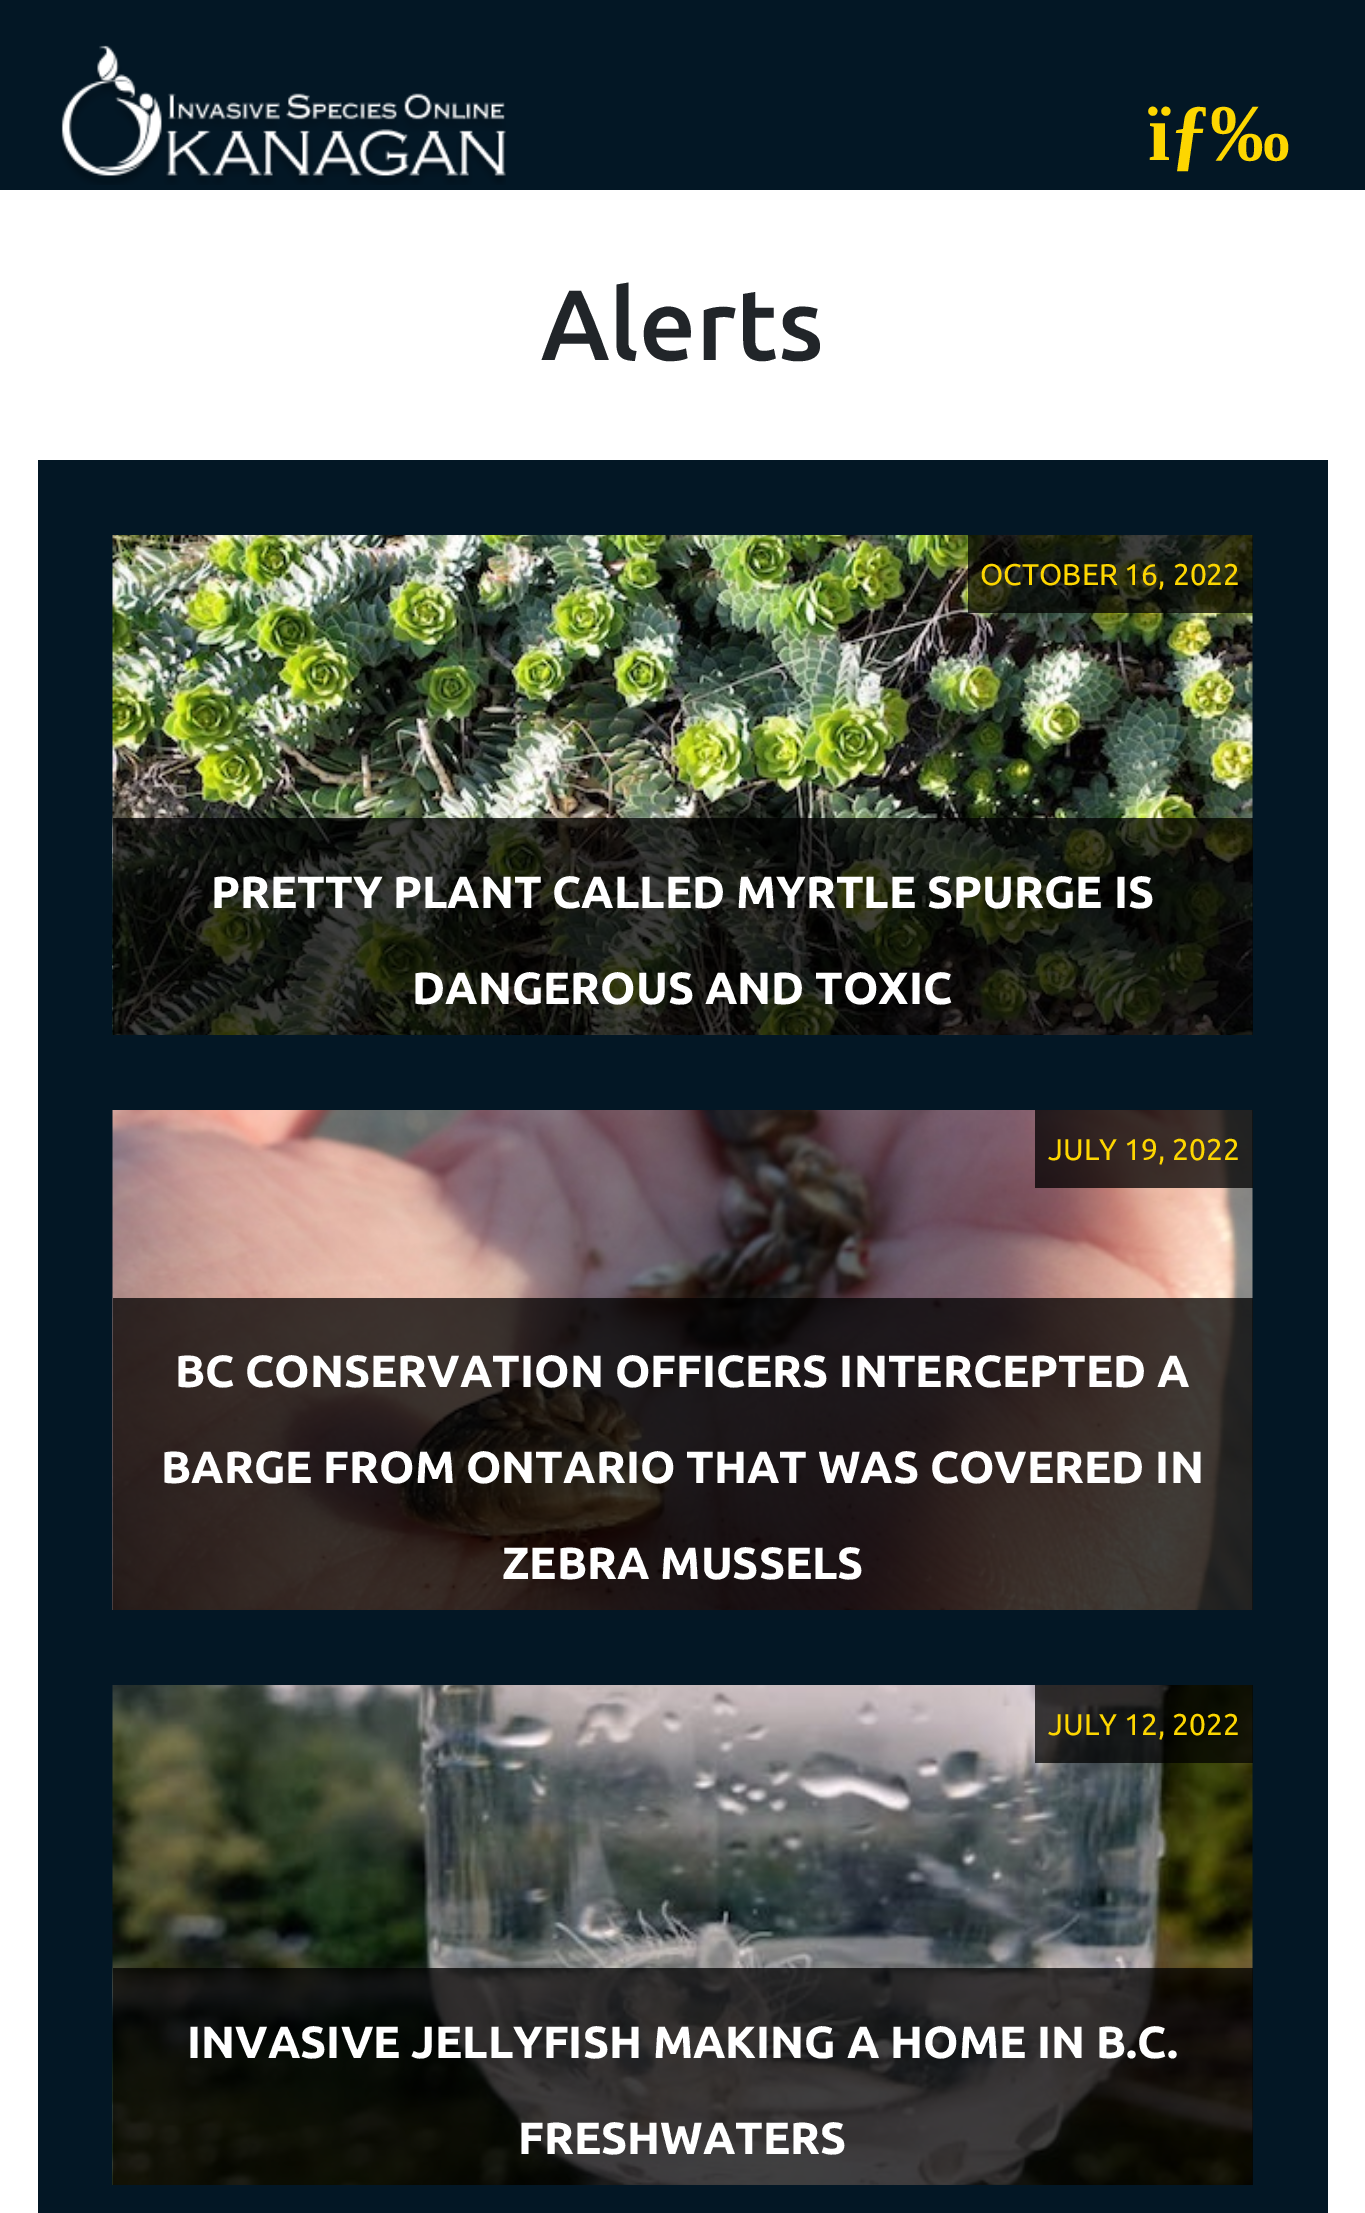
%!PS
<< /PageSize [1365 2213] /PageUsesTransparency true >> setpagedevice
/rgb { 3 { 255 div 3 1 roll } repeat setrgbcolor } def
/font { [ exch dup neg 0 0 3 -1 roll 0 0 ] selectfont } def
/text { moveto show } def
/alpha { dup .setfillconstantalpha .setstrokeconstantalpha } def
/picture { 5 dict begin { /h /w /y /x /name } { exch def } forall
  gsave x y translate w h scale
  w h 8 [w 0 0 h 0 0] name (r) file false 3 colorimage grestore end } def
0 .pushpdf14devicefilter
0 2213 translate 1 -1 scale
4 setmiterlimit
255 255 255 rgb
0 0 1365 2213 rectfill
3 23 37 rgb
0 0 1365 190 rectfill
(img_01.rgb) 60 45 446 140 picture
38 460 1290 1753 rectfill
(img_02.rgb) 112 535 1141 500 picture
0.75 alpha
0 0 0 rgb
968 535 285 78 rectfill
113 818 1140 217 rectfill
1 alpha
(img_03.rgb) 112 1110 1141 500 picture
0.75 alpha
1035 1110 218 78 rectfill
113 1298 1140 312 rectfill
1 alpha
(img_04.rgb) 112 1685 1141 500 picture
0.75 alpha
1035 1685 218 78 rectfill
113 1968 1140 217 rectfill
/LiberationSerif-Bold 80 font
1 alpha
253 214 0 rgb
(ïƒ‰) 1148 160 text
/Ubuntu-Medium 100 font
33 37 41 rgb
(Alerts) 541 360 text
/Ubuntu-Regular 30 font
253 214 0 rgb
(OCTOBER 16, 2022) 980 585 text
/Ubuntu-Bold 45 font
255 255 255 rgb
(PRETTY PLANT CALLED MYRTLE SPURGE IS) 211 908 text
(DANGEROUS AND TOXIC) 412 1004 text
/Ubuntu-Regular 30 font
253 214 0 rgb
(JULY 19, 2022) 1048 1160 text
/Ubuntu-Bold 45 font
255 255 255 rgb
(BC CONSERVATION OFFICERS INTERCEPTED A) 175 1387 text
(BARGE FROM ONTARIO THAT WAS COVERED IN) 161 1483 text
(ZEBRA MUSSELS) 502 1579 text
/Ubuntu-Regular 30 font
253 214 0 rgb
(JULY 12, 2022) 1048 1735 text
/Ubuntu-Bold 45 font
255 255 255 rgb
(INVASIVE JELLYFISH MAKING A HOME IN B.C.) 187 2058 text
(FRESHWATERS) 518 2154 text
.poppdf14devicefilter showpage
